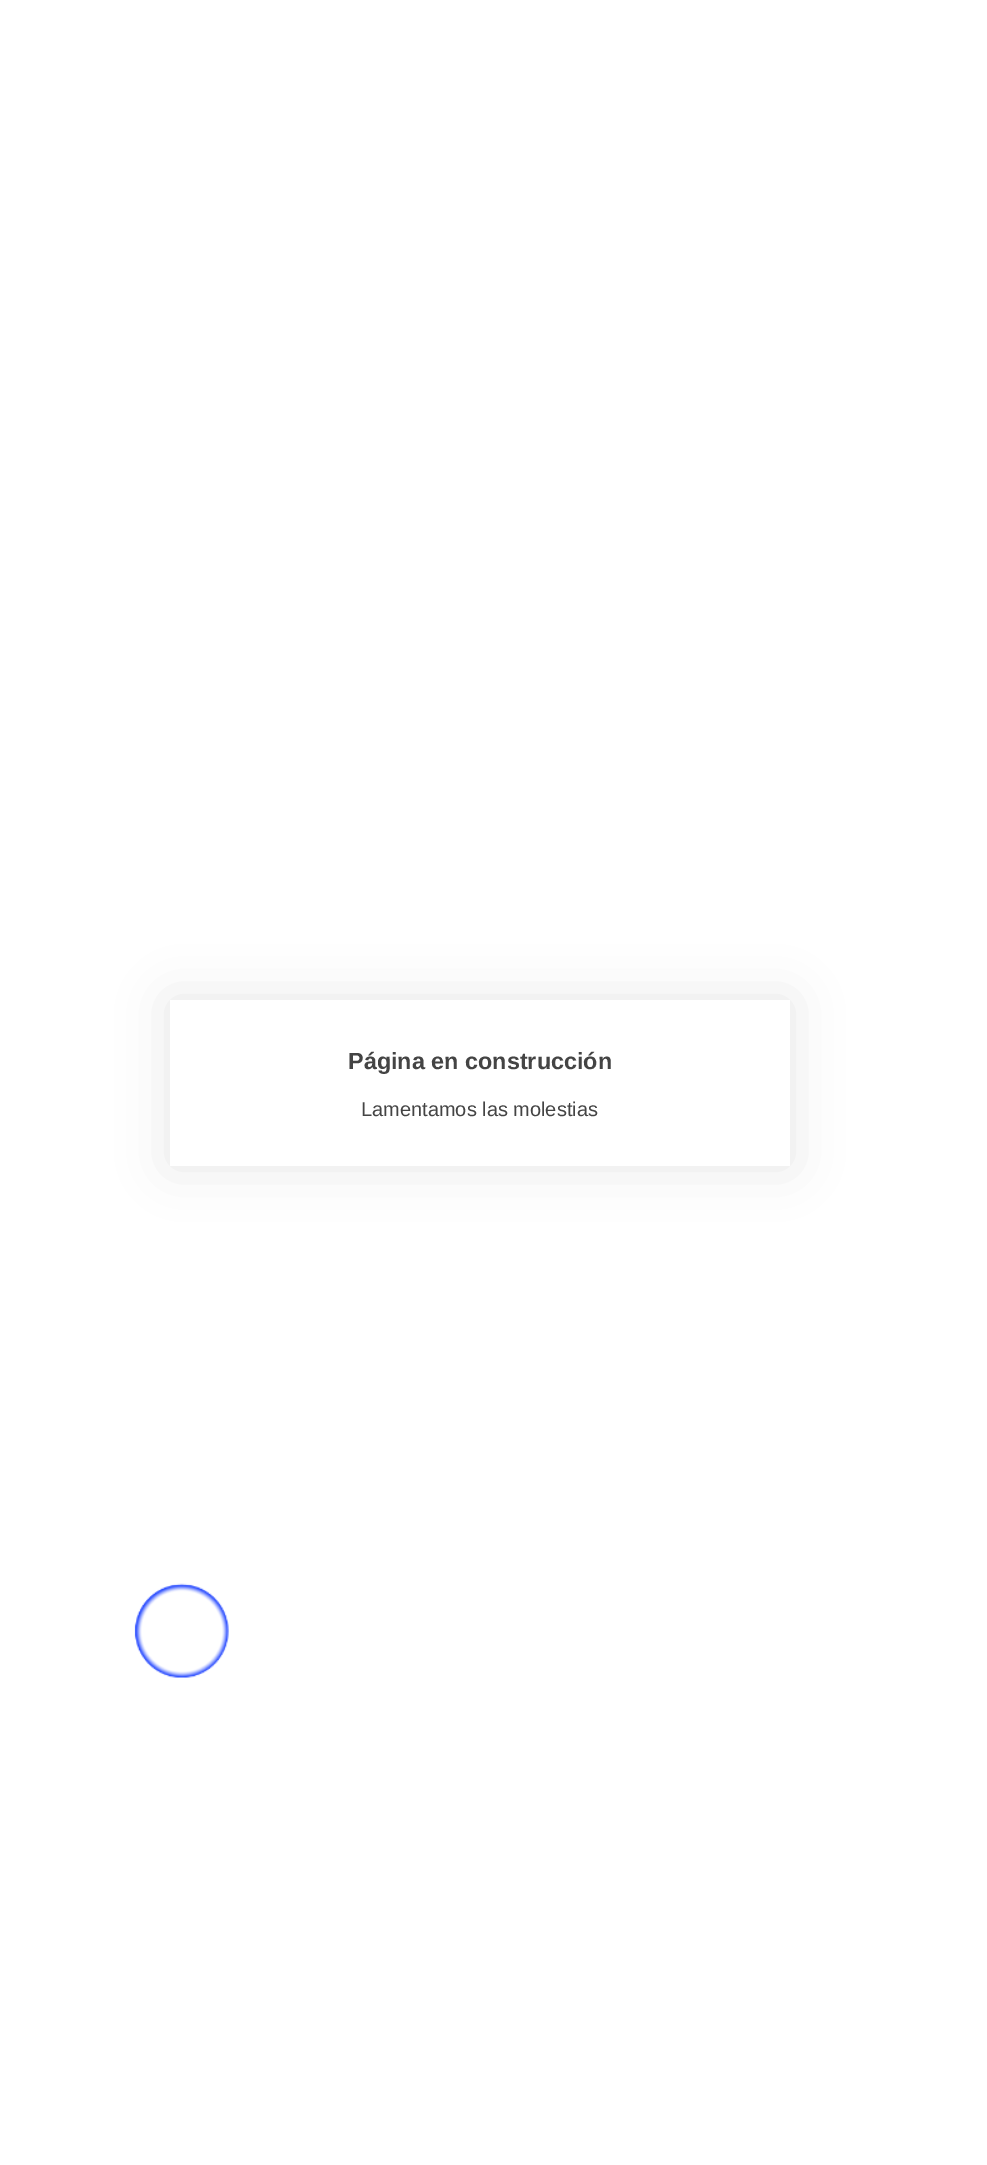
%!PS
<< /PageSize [987 2165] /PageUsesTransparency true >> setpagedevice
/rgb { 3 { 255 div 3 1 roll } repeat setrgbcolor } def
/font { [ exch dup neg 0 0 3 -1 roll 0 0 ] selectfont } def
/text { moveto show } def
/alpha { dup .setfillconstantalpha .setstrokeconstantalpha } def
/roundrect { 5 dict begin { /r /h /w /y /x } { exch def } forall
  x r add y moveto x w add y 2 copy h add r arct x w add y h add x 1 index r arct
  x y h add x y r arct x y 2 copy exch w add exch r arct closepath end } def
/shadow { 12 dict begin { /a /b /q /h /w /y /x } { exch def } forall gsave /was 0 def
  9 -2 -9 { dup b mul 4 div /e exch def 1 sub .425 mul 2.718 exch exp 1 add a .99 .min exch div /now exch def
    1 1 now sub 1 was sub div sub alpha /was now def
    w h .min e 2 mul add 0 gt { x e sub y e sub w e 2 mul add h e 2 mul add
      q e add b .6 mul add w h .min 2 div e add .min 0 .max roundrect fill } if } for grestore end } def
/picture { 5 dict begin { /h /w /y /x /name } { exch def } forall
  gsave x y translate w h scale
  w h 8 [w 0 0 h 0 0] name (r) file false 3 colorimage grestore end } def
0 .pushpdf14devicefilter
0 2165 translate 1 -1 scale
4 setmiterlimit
255 255 255 rgb
0 0 987 2165 rectfill
gsave
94 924 moveto 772 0 rlineto 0 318 rlineto -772 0 rlineto closepath 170 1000 moveto 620 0 rlineto 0 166 rlineto -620 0 rlineto closepath eoclip newpath
0 0 0 rgb
170 1000 620 166 0 25 0.1 shadow
grestore
(img_01.rgb) 134 1583 95 95 picture
/LiberationSans-Bold 23.4 font
68 68 68 rgb
(Página en construcción) 348 1069 text
/LiberationSans-Regular 20 font
(Lamentamos las molestias) 361 1116 text
.poppdf14devicefilter showpage
